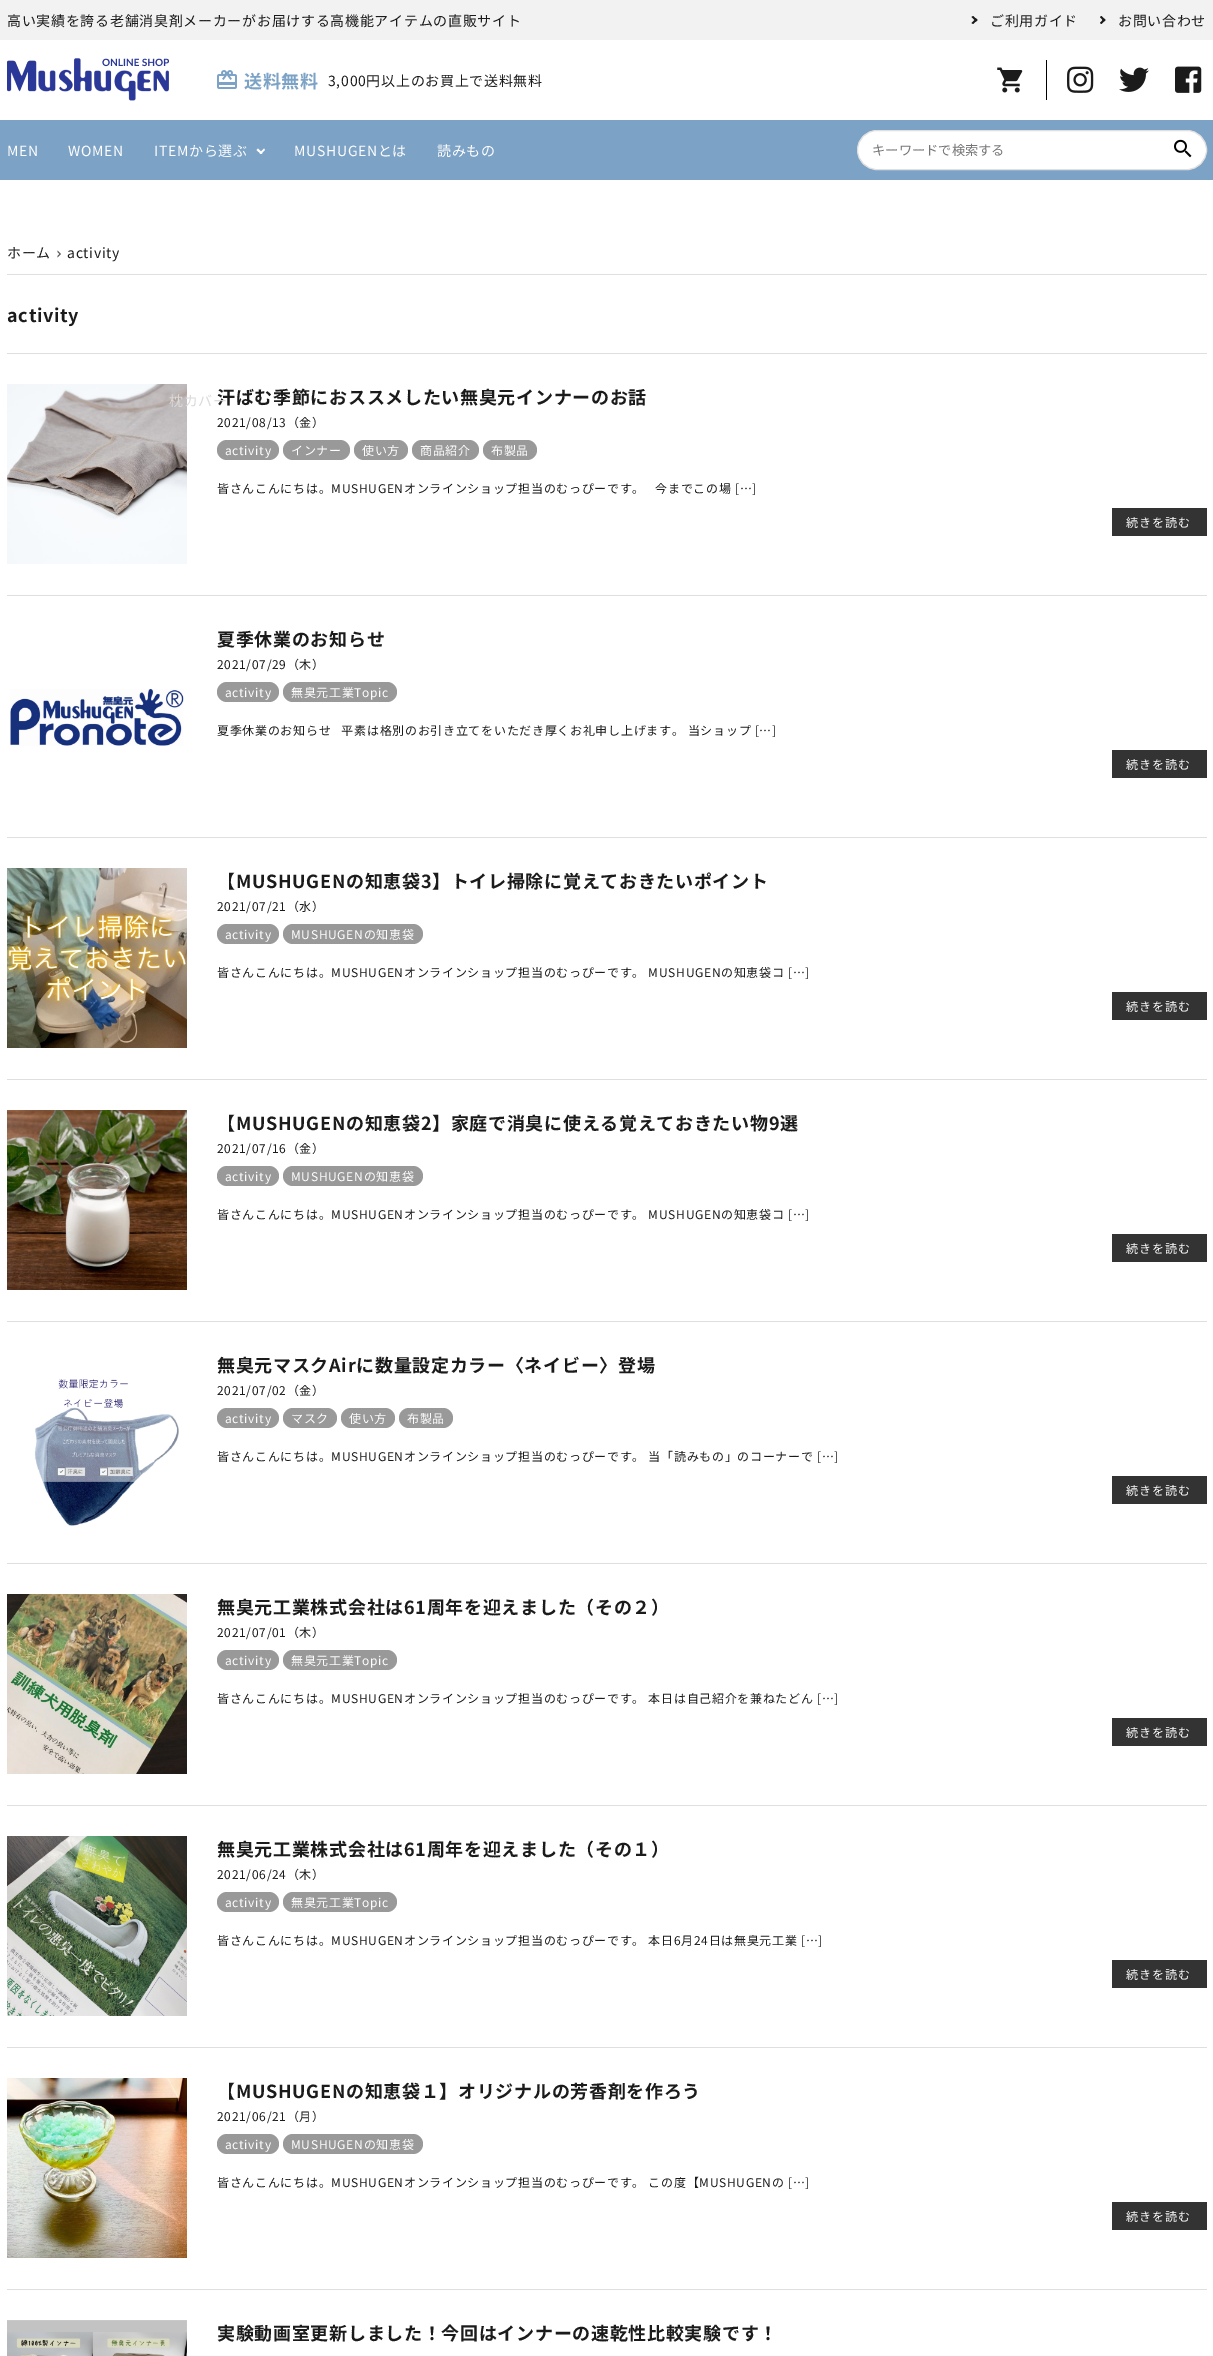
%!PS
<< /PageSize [1213 2356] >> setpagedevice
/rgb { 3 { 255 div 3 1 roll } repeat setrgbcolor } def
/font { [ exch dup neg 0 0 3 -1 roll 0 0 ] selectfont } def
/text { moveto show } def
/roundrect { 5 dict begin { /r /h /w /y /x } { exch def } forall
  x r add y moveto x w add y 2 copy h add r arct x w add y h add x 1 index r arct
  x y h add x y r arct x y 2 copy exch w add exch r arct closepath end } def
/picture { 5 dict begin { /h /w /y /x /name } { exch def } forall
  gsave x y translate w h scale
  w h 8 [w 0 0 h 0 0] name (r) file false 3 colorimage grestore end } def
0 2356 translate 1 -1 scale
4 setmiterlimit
255 255 255 rgb
0 0 1213 2356 rectfill
242 242 242 rgb
0 0 1213 40 rectfill
27 27 27 rgb
973 16 moveto 4.5 4 rlineto -1.5 1.5 rlineto -4.5 -4.5 rlineto closepath fill
976 18.5 moveto 1.5 1.5 rlineto -4.5 4 rlineto -1.5 -1 rlineto closepath fill
1101.5 16 moveto 4 4 rlineto -1.5 1.5 rlineto -4 -4.5 rlineto closepath fill
1104 18.5 moveto 1.5 1.5 rlineto -4 4 rlineto -1.5 -1 rlineto closepath fill
(img_01.rgb) 7 58 162 43 picture
(img_02.rgb) 217 70 20 19 picture
(img_03.rgb) 997 67 26 26 picture
0 0 0 rgb
1046 60 1 40 rectfill
(img_04.rgb) 1067 66 27 27 picture
(img_05.rgb) 1119 67 30 25 picture
(img_06.rgb) 1175 66 27 27 picture
124 162 198 rgb
0 120 1213 60 rectfill
255 255 255 rgb
265 150 moveto -4 4 rlineto -1.5 -1 rlineto 4.5 -4.5 rlineto closepath fill
262.5 153 moveto -1.5 1 rlineto -4.5 -4 rlineto 1.5 -1.5 rlineto closepath fill
857.5 130.5 349 39 19.5 roundrect gsave fill grestore
223 223 223 rgb
stroke
(img_07.rgb) 1174 139 18 19 picture
86 86 86 rgb
57.5 250.5 moveto 3.5 3.5 rlineto -1.5 0 rlineto -2 -2 rlineto closepath 61 254 moveto -3.5 3.5 rlineto 0 -1.5 rlineto 2 -2 rlineto closepath fill
223 223 223 rgb
7 274 1200 1 rectfill
7 353 1200 1 rectfill
7 595 1200 1 rectfill
(img_08.rgb) 7 384 180 180 picture
153 153 153 rgb
217 440 62 20 10 roundrect fill
283 440 67 20 10 roundrect fill
354 440 54 20 10 roundrect fill
412 440 67 20 10 roundrect fill
483 440 54 20 10 roundrect fill
51 51 51 rgb
1112 508 95 28 rectfill
223 223 223 rgb
7 837 1200 1 rectfill
(img_09.rgb) 10 688 174 58 picture
153 153 153 rgb
217 682 62 20 10 roundrect fill
283 682 114 20 10 roundrect fill
51 51 51 rgb
1112 750 95 28 rectfill
223 223 223 rgb
7 1079 1200 1 rectfill
(img_10.rgb) 7 868 180 180 picture
153 153 153 rgb
217 924 62 20 10 roundrect fill
283 924 140 20 10 roundrect fill
51 51 51 rgb
1112 992 95 28 rectfill
223 223 223 rgb
7 1321 1200 1 rectfill
(img_11.rgb) 7 1110 180 180 picture
153 153 153 rgb
217 1166 62 20 10 roundrect fill
283 1166 140 20 10 roundrect fill
51 51 51 rgb
1112 1234 95 28 rectfill
223 223 223 rgb
7 1563 1200 1 rectfill
(img_12.rgb) 34 1379 145 147 picture
153 153 153 rgb
217 1408 62 20 10 roundrect fill
283 1408 54 20 10 roundrect fill
341 1408 54 20 10 roundrect fill
399 1408 54 20 10 roundrect fill
51 51 51 rgb
1112 1476 95 28 rectfill
223 223 223 rgb
7 1805 1200 1 rectfill
(img_13.rgb) 7 1594 180 180 picture
153 153 153 rgb
217 1650 62 20 10 roundrect fill
283 1650 114 20 10 roundrect fill
51 51 51 rgb
1112 1718 95 28 rectfill
223 223 223 rgb
7 2047 1200 1 rectfill
(img_14.rgb) 7 1836 180 180 picture
153 153 153 rgb
217 1892 62 20 10 roundrect fill
283 1892 114 20 10 roundrect fill
51 51 51 rgb
1112 1960 95 28 rectfill
223 223 223 rgb
7 2289 1200 1 rectfill
(img_15.rgb) 7 2078 180 180 picture
153 153 153 rgb
217 2134 62 20 10 roundrect fill
283 2134 140 20 10 roundrect fill
51 51 51 rgb
1112 2202 95 28 rectfill
(img_16.rgb) 7 2320 180 36 picture
/NotoSansJP-Regular 14 font
27 27 27 rgb
7 26 moveto 0.7 0 (高い実績を誇る老舗消臭剤メーカーがお届けする高機能アイテムの直販サイト) ashow
990 26 moveto 0.7 0 (ご利用ガイド) ashow
1118 26 moveto 0.7 0 (お問い合わせ) ashow
/NotoSansJP-Bold 18 font
124 162 198 rgb
244 88 moveto 0.7 0 (送料無料) ashow
/NotoSansJP-Regular 14 font
27 27 27 rgb
328 86 moveto 0.7 0 (3,000円以上のお買上で送料無料) ashow
255 255 255 rgb
7 156 moveto 0.7 0 (MEN) ashow
68 156 moveto 0.7 0 (WOMEN) ashow
154 156 moveto 0.7 0 (ITEMから選ぶ) ashow
294 156 moveto 0.7 0 (MUSHUGENとは) ashow
437 156 moveto 0.7 0 (読みもの) ashow
/NotoSansJP-Regular 13.25 font
117 117 117 rgb
(キーワードで検索する) 872 155 text
/NotoSansJP-Regular 14 font
27 27 27 rgb
7 258 moveto 0.7 0 (ホーム) ashow
67 258 moveto 0.7 0 (activity) ashow
/NotoSansJP-Bold 18 font
7 322 moveto 0.7 0 (activity) ashow
217 404 moveto 0.7 0 (汗ばむ季節におススメしたい無臭元インナーのお話) ashow
/NotoSansJP-Regular 14 font
220 217 216 rgb
169 406 moveto 0.7 0 (枕カバー) ashow
/NotoSansJP-Regular 12 font
27 27 27 rgb
217 427 moveto 0.7 0 (2021/08/13（金）) ashow
255 255 255 rgb
225 455 moveto 0.7 0 (activity) ashow
291 455 moveto 0.7 0 (インナー) ashow
362 455 moveto 0.7 0 (使い方) ashow
420 455 moveto 0.7 0 (商品紹介) ashow
491 455 moveto 0.7 0 (布製品) ashow
27 27 27 rgb
217 493 moveto 0.7 0 (皆さんこんにちは。MUSHUGENオンラインショップ担当のむっぴーです。   今までこの場 […]) ashow
255 255 255 rgb
1126 527 moveto 1 0 (続きを読む) ashow
/NotoSansJP-Bold 18 font
27 27 27 rgb
217 646 moveto 0.7 0 (夏季休業のお知らせ) ashow
/NotoSansJP-Regular 12 font
217 669 moveto 0.7 0 (2021/07/29（木）) ashow
255 255 255 rgb
225 697 moveto 0.7 0 (activity) ashow
291 697 moveto 0.7 0 (無臭元工業Topic) ashow
27 27 27 rgb
217 735 moveto 0.7 0 (夏季休業のお知らせ   平素は格別のお引き立てをいただき厚くお礼申し上げます。 当ショップ […]) ashow
255 255 255 rgb
1126 769 moveto 1 0 (続きを読む) ashow
/NotoSansJP-Bold 18 font
27 27 27 rgb
217 888 moveto 0.7 0 (【MUSHUGENの知恵袋3】トイレ掃除に覚えておきたいポイント) ashow
/NotoSansJP-Regular 12 font
217 911 moveto 0.7 0 (2021/07/21（水）) ashow
255 255 255 rgb
225 939 moveto 0.7 0 (activity) ashow
291 939 moveto 0.7 0 (MUSHUGENの知恵袋) ashow
27 27 27 rgb
217 977 moveto 0.7 0 (皆さんこんにちは。MUSHUGENオンラインショップ担当のむっぴーです。 MUSHUGENの知恵袋コ […]) ashow
255 255 255 rgb
1126 1011 moveto 1 0 (続きを読む) ashow
/NotoSansJP-Bold 18 font
27 27 27 rgb
217 1130 moveto 0.7 0 (【MUSHUGENの知恵袋2】家庭で消臭に使える覚えておきたい物9選) ashow
/NotoSansJP-Regular 12 font
217 1153 moveto 0.7 0 (2021/07/16（金）) ashow
255 255 255 rgb
225 1181 moveto 0.7 0 (activity) ashow
291 1181 moveto 0.7 0 (MUSHUGENの知恵袋) ashow
27 27 27 rgb
217 1219 moveto 0.7 0 (皆さんこんにちは。MUSHUGENオンラインショップ担当のむっぴーです。 MUSHUGENの知恵袋コ […]) ashow
255 255 255 rgb
1126 1253 moveto 1 0 (続きを読む) ashow
/NotoSansJP-Bold 18 font
27 27 27 rgb
217 1372 moveto 0.7 0 (無臭元マスクAirに数量設定カラー〈ネイビー〉登場) ashow
/NotoSansJP-Regular 12 font
217 1395 moveto 0.7 0 (2021/07/02（金）) ashow
255 255 255 rgb
225 1423 moveto 0.7 0 (activity) ashow
291 1423 moveto 0.7 0 (マスク) ashow
349 1423 moveto 0.7 0 (使い方) ashow
407 1423 moveto 0.7 0 (布製品) ashow
27 27 27 rgb
217 1461 moveto 0.7 0 (皆さんこんにちは。MUSHUGENオンラインショップ担当のむっぴーです。 当「読みもの」のコーナーで […]) ashow
255 255 255 rgb
1126 1495 moveto 1 0 (続きを読む) ashow
/NotoSansJP-Bold 18 font
27 27 27 rgb
217 1614 moveto 0.7 0 (無臭元工業株式会社は61周年を迎えました（その２）) ashow
/NotoSansJP-Regular 12 font
217 1637 moveto 0.7 0 (2021/07/01（木）) ashow
255 255 255 rgb
225 1665 moveto 0.7 0 (activity) ashow
291 1665 moveto 0.7 0 (無臭元工業Topic) ashow
27 27 27 rgb
217 1703 moveto 0.7 0 (皆さんこんにちは。MUSHUGENオンラインショップ担当のむっぴーです。 本日は自己紹介を兼ねたどん […]) ashow
255 255 255 rgb
1126 1737 moveto 1 0 (続きを読む) ashow
/NotoSansJP-Bold 18 font
27 27 27 rgb
217 1856 moveto 0.7 0 (無臭元工業株式会社は61周年を迎えました（その１）) ashow
/NotoSansJP-Regular 12 font
217 1879 moveto 0.7 0 (2021/06/24（木）) ashow
255 255 255 rgb
225 1907 moveto 0.7 0 (activity) ashow
291 1907 moveto 0.7 0 (無臭元工業Topic) ashow
27 27 27 rgb
217 1945 moveto 0.7 0 (皆さんこんにちは。MUSHUGENオンラインショップ担当のむっぴーです。 本日6月24日は無臭元工業 […]) ashow
255 255 255 rgb
1126 1979 moveto 1 0 (続きを読む) ashow
/NotoSansJP-Bold 18 font
27 27 27 rgb
217 2098 moveto 0.7 0 (【MUSHUGENの知恵袋１】オリジナルの芳香剤を作ろう) ashow
/NotoSansJP-Regular 12 font
217 2121 moveto 0.7 0 (2021/06/21（月）) ashow
255 255 255 rgb
225 2149 moveto 0.7 0 (activity) ashow
291 2149 moveto 0.7 0 (MUSHUGENの知恵袋) ashow
27 27 27 rgb
217 2187 moveto 0.7 0 (皆さんこんにちは。MUSHUGENオンラインショップ担当のむっぴーです。 この度【MUSHUGENの […]) ashow
255 255 255 rgb
1126 2221 moveto 1 0 (続きを読む) ashow
/NotoSansJP-Bold 18 font
27 27 27 rgb
217 2340 moveto 0.7 0 (実験動画室更新しました！今回はインナーの速乾性比較実験です！) ashow
showpage
